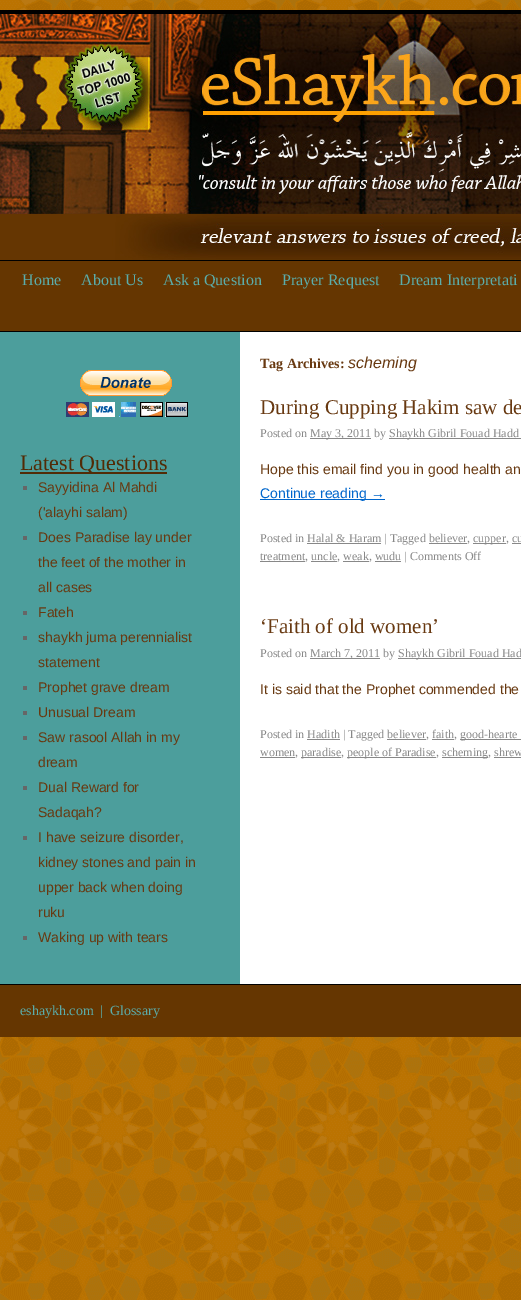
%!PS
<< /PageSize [521 1300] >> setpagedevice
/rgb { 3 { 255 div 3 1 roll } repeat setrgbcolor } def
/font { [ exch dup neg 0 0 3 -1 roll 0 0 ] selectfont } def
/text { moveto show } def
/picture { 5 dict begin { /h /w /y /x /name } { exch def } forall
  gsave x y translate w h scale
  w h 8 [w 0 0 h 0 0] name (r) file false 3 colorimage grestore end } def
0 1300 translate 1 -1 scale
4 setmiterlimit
255 255 255 rgb
0 0 521 1300 rectfill
(img_01.rgb) 0 1037 521 263 picture
(img_02.rgb) 0 0 521 10 picture
0 0 0 rgb
0 10 521 4 rectfill
0 260 521 1 rectfill
(img_03.rgb) 0 14 521 246 picture
101 54 1 rgb
0 261 521 70 rectfill
76 158 156 rgb
0 332 240 652 rectfill
0 0 0 rgb
0 331 521 1 rectfill
(img_04.rgb) 66 370 122 47 picture
82 43 6 rgb
20 472 147 2 rectfill
102 102 102 rgb
23 486 4 4 rectfill
23 536 4 4 rectfill
23 611 4 4 rectfill
23 636 4 4 rectfill
23 686 4 4 rectfill
23 711 4 4 rectfill
23 736 4 4 rectfill
23 786 4 4 rectfill
23 836 4 4 rectfill
23 936 4 4 rectfill
136 136 136 rgb
310 438 61 1 rectfill
389 438 132 1 rectfill
0 102 204 rgb
260 499 125 1 rectfill
136 136 136 rgb
307 543 74 1 rectfill
429 543 38 1 rectfill
473 543 33 1 rectfill
512 543 9 1 rectfill
260 561 45 1 rectfill
311 561 26 1 rectfill
343 561 26 1 rectfill
375 561 26 1 rectfill
310 658 70 1 rectfill
398 658 123 1 rectfill
307 739 33 1 rectfill
432 739 22 1 rectfill
460 739 61 1 rectfill
260 757 35 1 rectfill
301 757 40 1 rectfill
387 739 39 1 rectfill
347 757 89 1 rectfill
442 757 46 1 rectfill
494 757 27 1 rectfill
101 54 1 rgb
0 985 521 52 rectfill
0 0 0 rgb
0 984 521 1 rectfill
/LiberationSerif-Regular 16 font
91 173 171 rgb
(Home) 22 285 text
(About Us) 81 285 text
(Ask a Question) 163 285 text
(Prayer Request) 282 285 text
(Dream Interpretati) 399 285 text
/LiberationSerif-Regular 22 font
82 43 6 rgb
(Latest Questions) 20 470 text
/LiberationSans-Regular 14 font
104 57 17 rgb
(Sayyidina Al Mahdi) 38 492 text
(\('alayhi salam\)) 38 517 text
(Does Paradise lay under) 38 542 text
(the feet of the mother in) 38 567 text
(all cases) 38 592 text
(Fateh) 38 617 text
(shaykh juma perennialist) 38 642 text
(statement) 38 667 text
(Prophet grave dream) 38 692 text
(Unusual Dream) 38 717 text
(Saw rasool Allah in my) 38 742 text
(dream) 38 767 text
(Dual Reward for) 38 792 text
(Sadaqah?) 38 817 text
(I have seizure disorder,) 38 842 text
(kidney stones and pain in) 38 867 text
(upper back when doing) 38 892 text
(ruku) 38 917 text
(Waking up with tears) 38 942 text
/LiberationSerif-Bold 14 font
(Tag Archives:) 260 368 text
/LiberationSans-Italic 16 font
(scheming) 348 368 text
/LiberationSerif-Regular 21 font
(During Cupping Hakim saw de) 260 414 text
/LiberationSerif-Regular 12 font
136 136 136 rgb
(Posted on) 260 437 text
(May 3, 2011 by) 310 437 text
(Shaykh Gibril Fouad Hadd) 389 437 text
/LiberationSans-Regular 14 font
104 57 17 rgb
(Hope this email find you in good health an) 260 474 text
0 102 204 rgb
(Continue reading →) 260 498 text
/LiberationSerif-Regular 12 font
136 136 136 rgb
(Posted in Halal & Haram | Tagged believer,) 260 542 text
(cupper, cu) 473 542 text
(treatment, uncle, weak, wudu | Comments Off) 260 560 text
/LiberationSerif-Regular 21 font
104 57 17 rgb
(‘Faith of old women’) 260 633 text
/LiberationSerif-Regular 12 font
136 136 136 rgb
(Posted on) 260 657 text
(March 7, 2011 by) 310 657 text
(Shaykh Gibril Fouad Had) 398 657 text
/LiberationSans-Regular 14 font
104 57 17 rgb
(It is said that the Prophet commended the) 260 694 text
/LiberationSerif-Regular 12 font
136 136 136 rgb
(Posted in Hadith | Tagged believer, faith,) 260 738 text
(good-hearte) 460 738 text
(women,) 260 756 text
(paradise,) 301 756 text
(people of Paradise,) 347 756 text
(scheming, shrew) 442 756 text
/LiberationSerif-Regular 14 font
91 173 171 rgb
(eshaykh.com) 20 1015 text
(|) 100 1015 text
(Glossary) 110 1015 text
showpage
